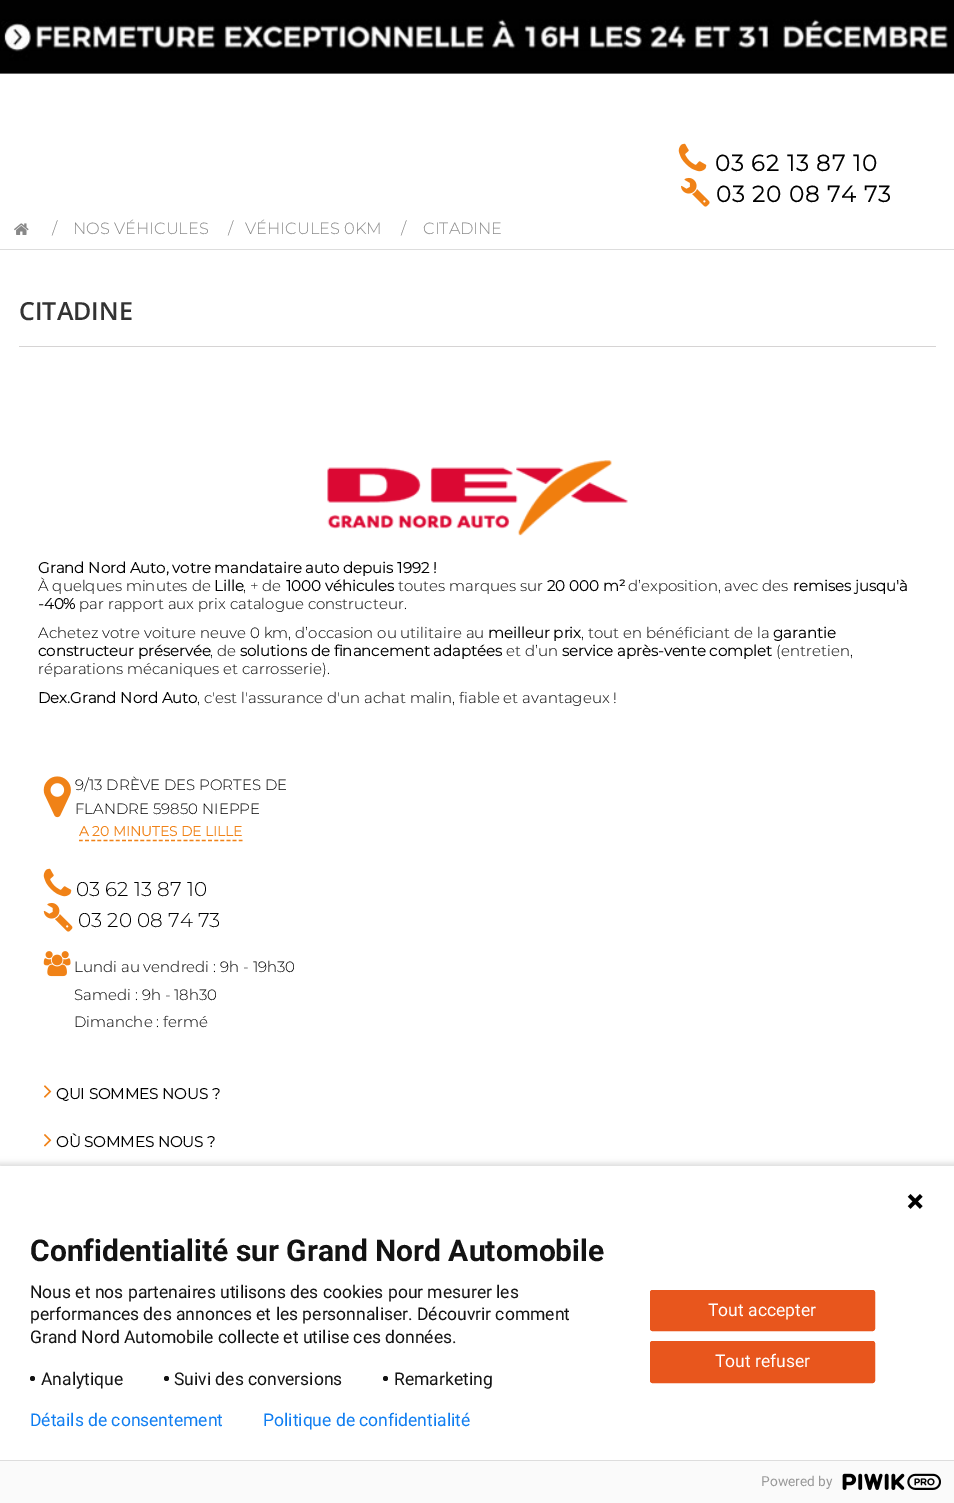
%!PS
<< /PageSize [954 1503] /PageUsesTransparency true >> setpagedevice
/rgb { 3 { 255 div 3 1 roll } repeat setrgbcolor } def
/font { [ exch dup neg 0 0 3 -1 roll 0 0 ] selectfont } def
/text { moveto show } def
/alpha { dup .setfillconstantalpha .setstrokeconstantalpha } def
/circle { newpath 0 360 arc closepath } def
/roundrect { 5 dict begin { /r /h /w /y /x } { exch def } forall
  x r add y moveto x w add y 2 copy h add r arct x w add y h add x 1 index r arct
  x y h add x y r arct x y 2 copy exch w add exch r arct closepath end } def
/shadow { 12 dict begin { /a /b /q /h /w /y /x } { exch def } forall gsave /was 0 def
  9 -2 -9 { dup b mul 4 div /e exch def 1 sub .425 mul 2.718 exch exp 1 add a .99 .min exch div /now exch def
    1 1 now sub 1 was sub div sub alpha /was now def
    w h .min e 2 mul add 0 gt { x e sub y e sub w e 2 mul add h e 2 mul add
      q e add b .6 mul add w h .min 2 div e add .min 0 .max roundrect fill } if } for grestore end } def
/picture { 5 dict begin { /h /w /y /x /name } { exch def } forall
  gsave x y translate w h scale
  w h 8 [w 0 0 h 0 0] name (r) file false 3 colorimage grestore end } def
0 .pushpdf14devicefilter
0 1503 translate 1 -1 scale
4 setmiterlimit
255 255 255 rgb
0 0 954 1503 rectfill
(img_01.rgb) 0 0 954 74 picture
(img_02.rgb) 678 143 29 29 picture
(img_03.rgb) 681 177 29 30 picture
221 221 221 rgb
0 249 954 1 rectfill
(img_04.rgb) 14 223 15 12 picture
214 212 212 rgb
19 346 917 1 rectfill
(img_05.rgb) 327 460 301 76 picture
(img_06.rgb) 43 776 28 42 picture
240 130 23 rgb
1.2 setlinewidth
[3.75 2.4] 0 setdash
79 840.5 moveto 163.5 0 rlineto stroke
(img_02.rgb) 43 868 29 29 picture
(img_07.rgb) 43 902 30 30 picture
(img_08.rgb) 43 951 28 26 picture
(img_09.rgb) 44 1085 8 13 picture
(img_10.rgb) 44 1134 8 13 picture
0 0 0 rgb
-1 1163 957 340 0 3 0.14 shadow
255 255 255 rgb
0 1166 954 294 rectfill
(img_11.rgb) 907 1194 16 15 picture
19 19 19 rgb
32.5 1378.5 2.5 circle fill
166.5 1378.5 2.5 circle fill
385.5 1378.5 2.5 circle fill
232 86 29 rgb
650.5 1290.5 224 40 2 roundrect gsave fill grestore
1 setlinewidth
[] 0 setdash
stroke
650.5 1341.5 224 41 2 roundrect gsave fill grestore
stroke
250 250 250 rgb
0 1461 954 42 rectfill
221 221 221 rgb
0 1460 954 1 rectfill
(img_12.rgb) 842 1473 99 17 picture
/Montserrat-Bold 22.5 font
0 0 0 rgb
715 171 moveto 1.1 0 (03 62 13 87 10) ashow
716 202 moveto 1.1 0 (03 20 08 74 73) ashow
/Montserrat-Light 16.25 font
136 136 136 rgb
(/) 52 234 text
(NOS VÉHICULES) 73 234 text
(/) 228 234 text
(VÉHICULES 0KM) 245 234 text
(/) 401 234 text
(CITADINE) 423 234 text
/OpenSans-SemiBold 25 font
51 51 51 rgb
(CITADINE) 19 320 text
/Montserrat-Bold 15 font
0 0 0 rgb
(Grand Nord Auto, votre mandataire auto depuis 1992 !) 38 573 text
/Montserrat-Light 15 font
(À quelques minutes de) 38 591 text
/Montserrat-Bold 15 font
(Lille) 214 591 text
/Montserrat-Light 15 font
(, + de) 243 591 text
/Montserrat-Bold 15 font
(1000 véhicules) 286 591 text
/Montserrat-Light 15 font
(toutes marques sur) 398 591 text
/Montserrat-Bold 15 font
(20 000 m²) 547 591 text
/Montserrat-Light 15 font
(d’exposition, avec des) 628 591 text
/Montserrat-Bold 15 font
(remises jusqu'à) 793 591 text
(-40%) 38 609 text
/Montserrat-Light 15 font
(par rapport aux prix catalogue constructeur.) 79 609 text
(Achetez votre voiture neuve 0 km, d’occasion ou utilitaire au) 38 638 text
/Montserrat-Bold 15 font
(meilleur prix) 488 638 text
/Montserrat-Light 15 font
(, tout en bénéficiant de la) 581 638 text
/Montserrat-Bold 15 font
(garantie) 773 638 text
(constructeur préservée) 38 656 text
/Montserrat-Light 15 font
(, de) 210 656 text
/Montserrat-Bold 15 font
(solutions de financement adaptées) 240 656 text
/Montserrat-Light 15 font
(et d’un) 506 656 text
/Montserrat-Bold 15 font
(service après-vente complet) 562 656 text
/Montserrat-Light 15 font
(\(entretien,) 776 656 text
(réparations mécaniques et carrosserie\).) 38 674 text
/Montserrat-Bold 15 font
(Dex.Grand Nord Auto) 38 703 text
/Montserrat-Light 15 font
(, c'est l'assurance d'un achat malin, fiable et avantageux !) 197 703 text
(9/13 DRÈVE DES PORTES DE) 75 790 text
(FLANDRE 59850 NIEPPE) 75 814 text
/Montserrat-Bold 13.75 font
240 130 23 rgb
(A 20 MINUTES DE LILLE) 79 836 text
/Montserrat-Light 20 font
0 0 0 rgb
(03 62 13 87 10) 76 896 text
(03 20 08 74 73) 78 927 text
/Montserrat-Light 15 font
(Lundi au vendredi : 9h - 19h30) 74 972 text
(Samedi : 9h - 18h30) 74 1000 text
(Dimanche : fermé) 74 1027 text
/Montserrat-Bold 15 font
(QUI SOMMES NOUS ?) 56 1099 text
(OÙ SOMMES NOUS ?) 56 1147 text
/Roboto-Bold 30 font
19 19 19 rgb
(Confidentialité sur Grand Nord Automobile) 30 1261 text
/Roboto-Regular 17.5 font
(Nous et nos partenaires utilisons des cookies pour mesurer les) 30 1298 text
(performances des annonces et les personnaliser. Découvrir comment) 30 1320 text
(Grand Nord Automobile collecte et utilise ces données.) 30 1343 text
(Analytique) 41 1385 text
(Suivi des conversions) 174 1385 text
(Remarketing) 394 1385 text
255 255 255 rgb
(Tout accepter) 708 1316 text
(Tout refuser) 715 1367 text
16 126 241 rgb
(Détails de consentement) 30 1426 text
(Politique de confidentialité) 263 1426 text
/Roboto-Regular 13.75 font
153 153 153 rgb
(Powered by) 761 1486 text
.poppdf14devicefilter showpage
